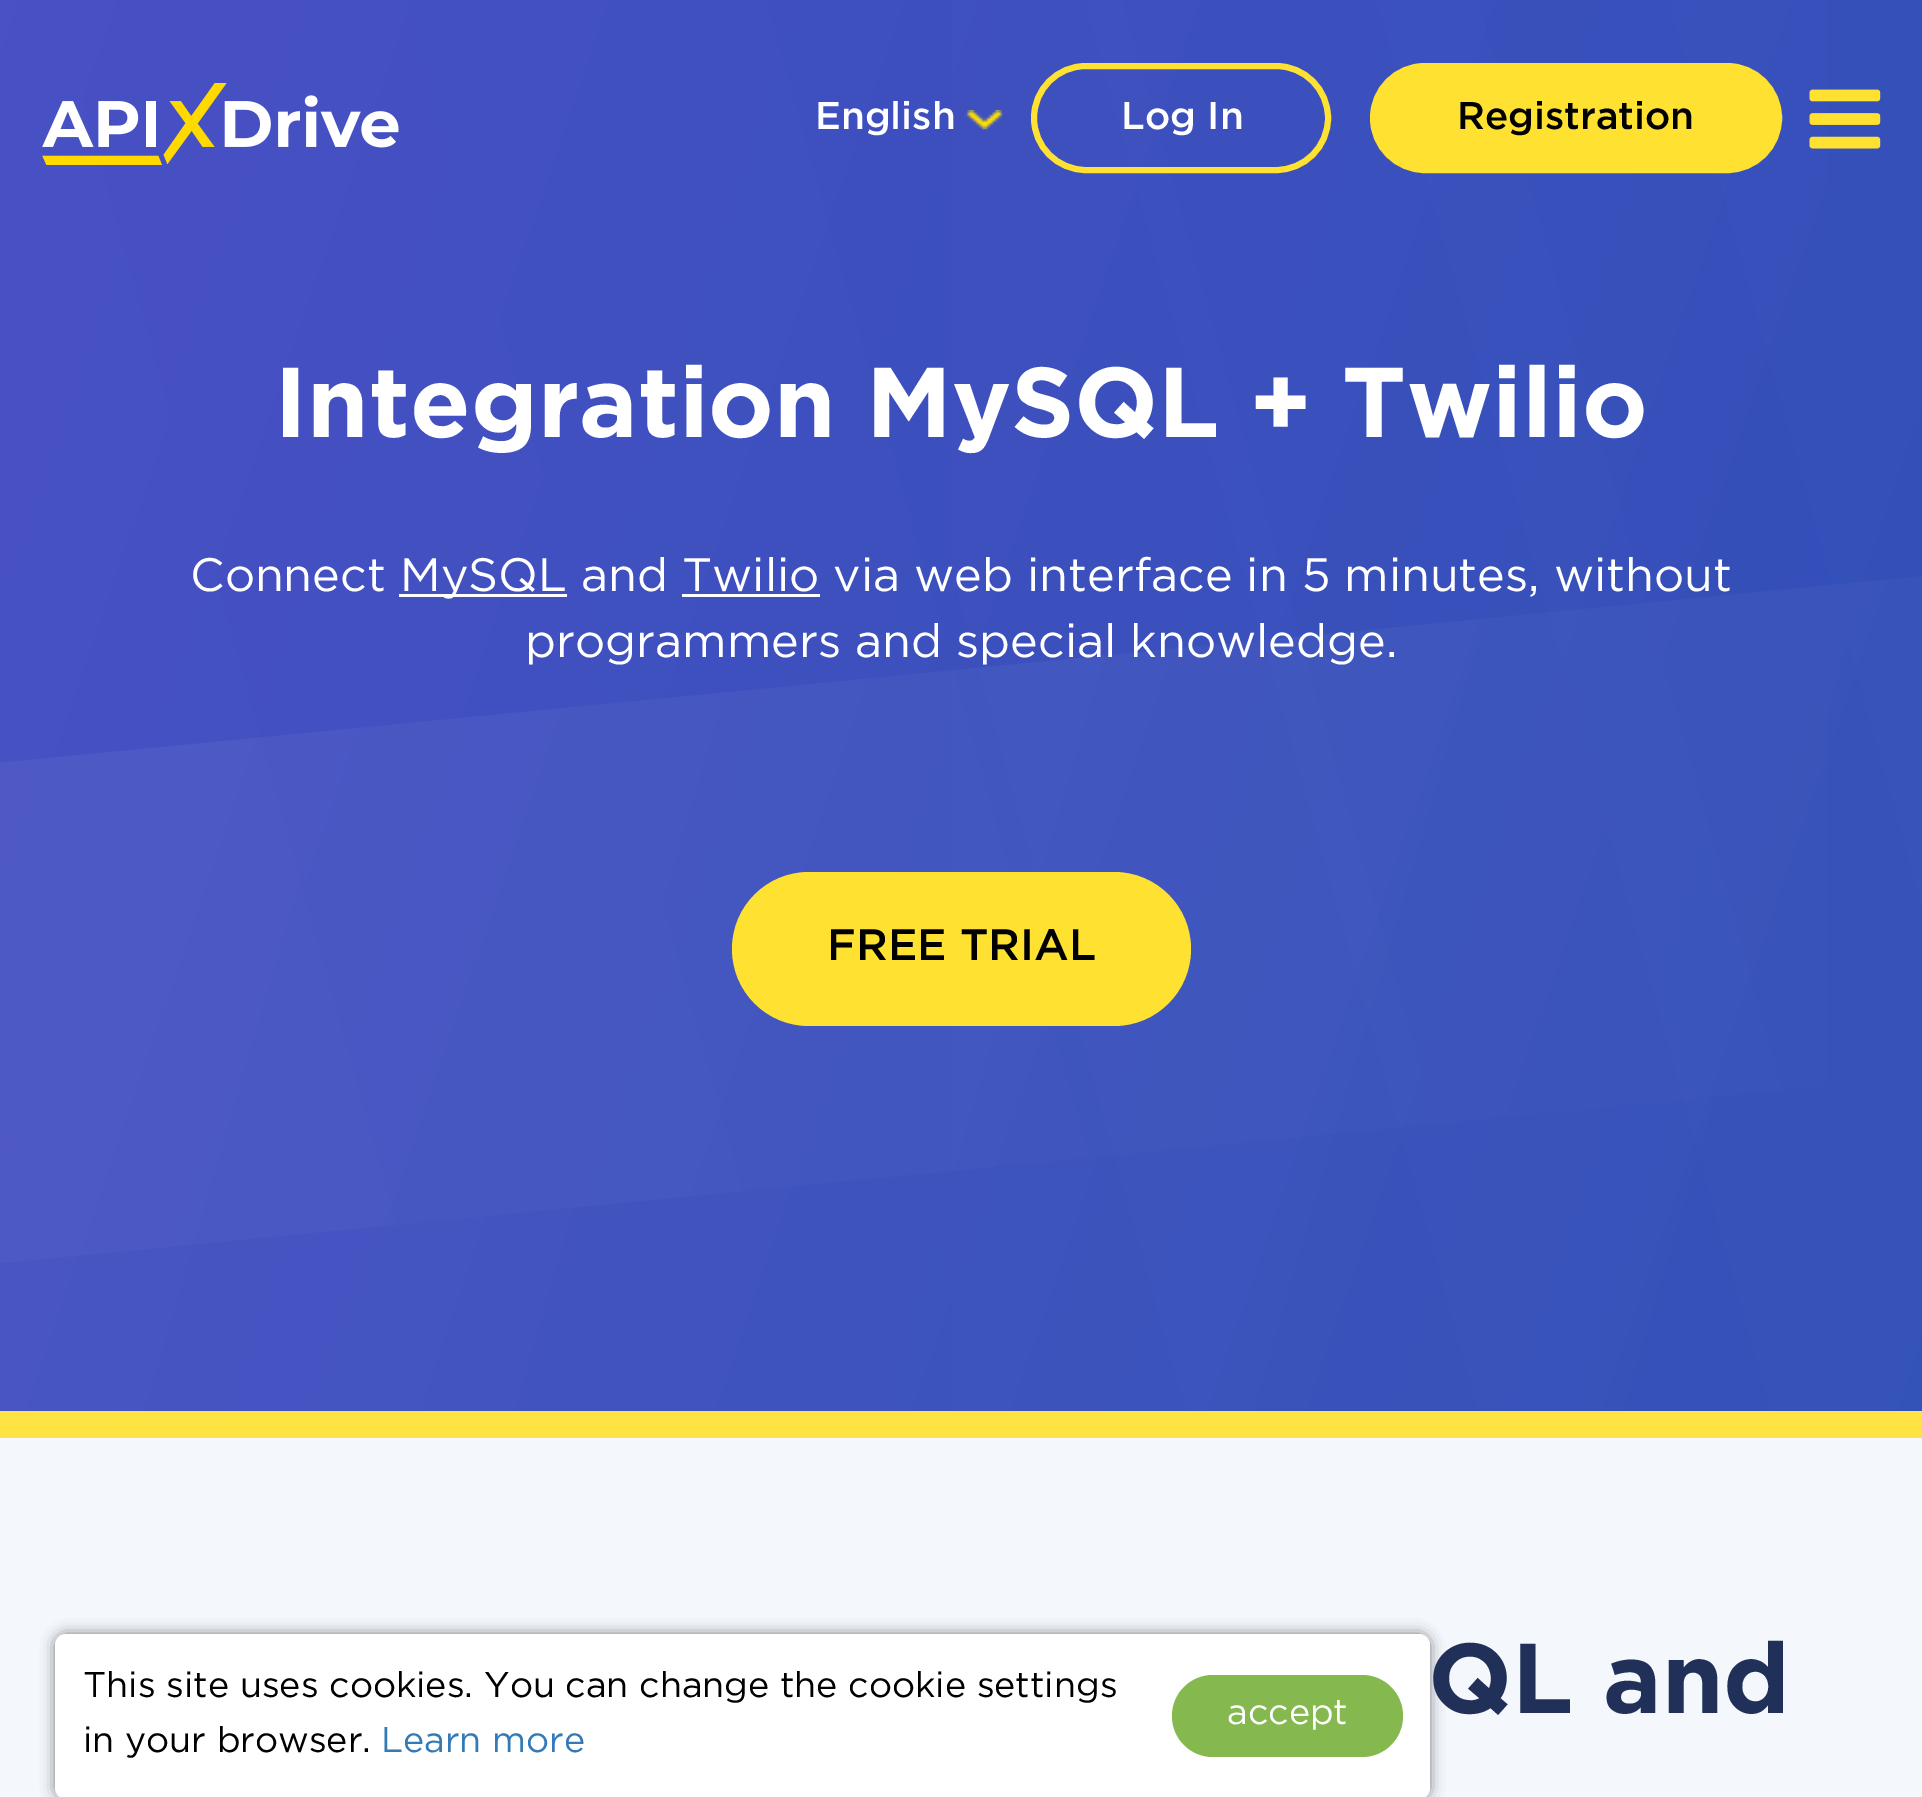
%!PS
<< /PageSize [1922 1797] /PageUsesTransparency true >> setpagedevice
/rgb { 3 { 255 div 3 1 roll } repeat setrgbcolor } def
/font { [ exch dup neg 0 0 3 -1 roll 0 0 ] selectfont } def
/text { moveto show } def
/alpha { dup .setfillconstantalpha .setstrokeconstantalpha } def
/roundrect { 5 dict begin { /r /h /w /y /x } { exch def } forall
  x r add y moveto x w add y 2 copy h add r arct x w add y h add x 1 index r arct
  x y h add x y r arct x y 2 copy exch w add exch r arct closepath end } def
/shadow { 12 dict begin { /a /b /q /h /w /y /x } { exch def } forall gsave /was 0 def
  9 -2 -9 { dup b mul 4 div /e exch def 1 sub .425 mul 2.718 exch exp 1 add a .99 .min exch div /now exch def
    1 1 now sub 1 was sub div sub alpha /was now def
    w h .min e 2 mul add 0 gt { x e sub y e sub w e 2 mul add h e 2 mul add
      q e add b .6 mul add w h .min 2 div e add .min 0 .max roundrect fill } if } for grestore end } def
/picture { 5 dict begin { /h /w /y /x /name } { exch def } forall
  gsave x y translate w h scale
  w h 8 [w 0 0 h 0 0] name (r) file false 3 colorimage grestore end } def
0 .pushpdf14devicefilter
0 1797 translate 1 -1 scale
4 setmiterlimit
244 247 252 rgb
0 0 1922 1797 rectfill
(img_01.rgb) 0 0 1922 1411 picture
255 227 67 rgb
0 1411 1922 27 rectfill
(img_02.rgb) 42 83 357 82 picture
(img_03.rgb) 965 110 39 20 picture
255 225 49 rgb
6 setlinewidth
1034 66 294 104 52 roundrect stroke
1373 66 406 104 52 roundrect gsave fill grestore
stroke
(img_04.rgb) 1809 89 72 60 picture
255 255 255 rgb
399 594 168 3 rectfill
682 594 138 3 rectfill
255 225 49 rgb
732 872 459 154 77 roundrect fill
0 0 0 rgb
55 1634 1375 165 11 7 0.5 shadow
255 255 255 rgb
55 1634 1375 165 11 roundrect fill
133 184 79 rgb
1172 1675 231 82 41 roundrect fill
/Gotham-Medium 38.5 font
255 255 255 rgb
(English) 815 129 text
(Log In) 1121 129 text
0 0 0 rgb
(Registration) 1457 129 text
/Gotham-Bold 99 font
255 255 255 rgb
(Integration MySQL + Twilio) 274 437 text
/Gotham-Regular 46.75 font
(Connect) 190 591 text
(MySQL and Twilio via web interface in 5 minutes, without) 400 591 text
(programmers and special knowledge.) 525 657 text
/Gotham-Medium 44 font
0 0 0 rgb
(FREE TRIAL) 827 960 text
/Gotham-Regular 35.75 font
(This site uses cookies. You can change the cookie settings) 83 1697 text
(in your browser.) 83 1752 text
51 122 183 rgb
(Learn more) 381 1752 text
255 255 255 rgb
(accept) 1227 1724 text
/Gotham-Bold 99 font
32 48 88 rgb
(QL and) 1428 1713 text
.poppdf14devicefilter showpage
